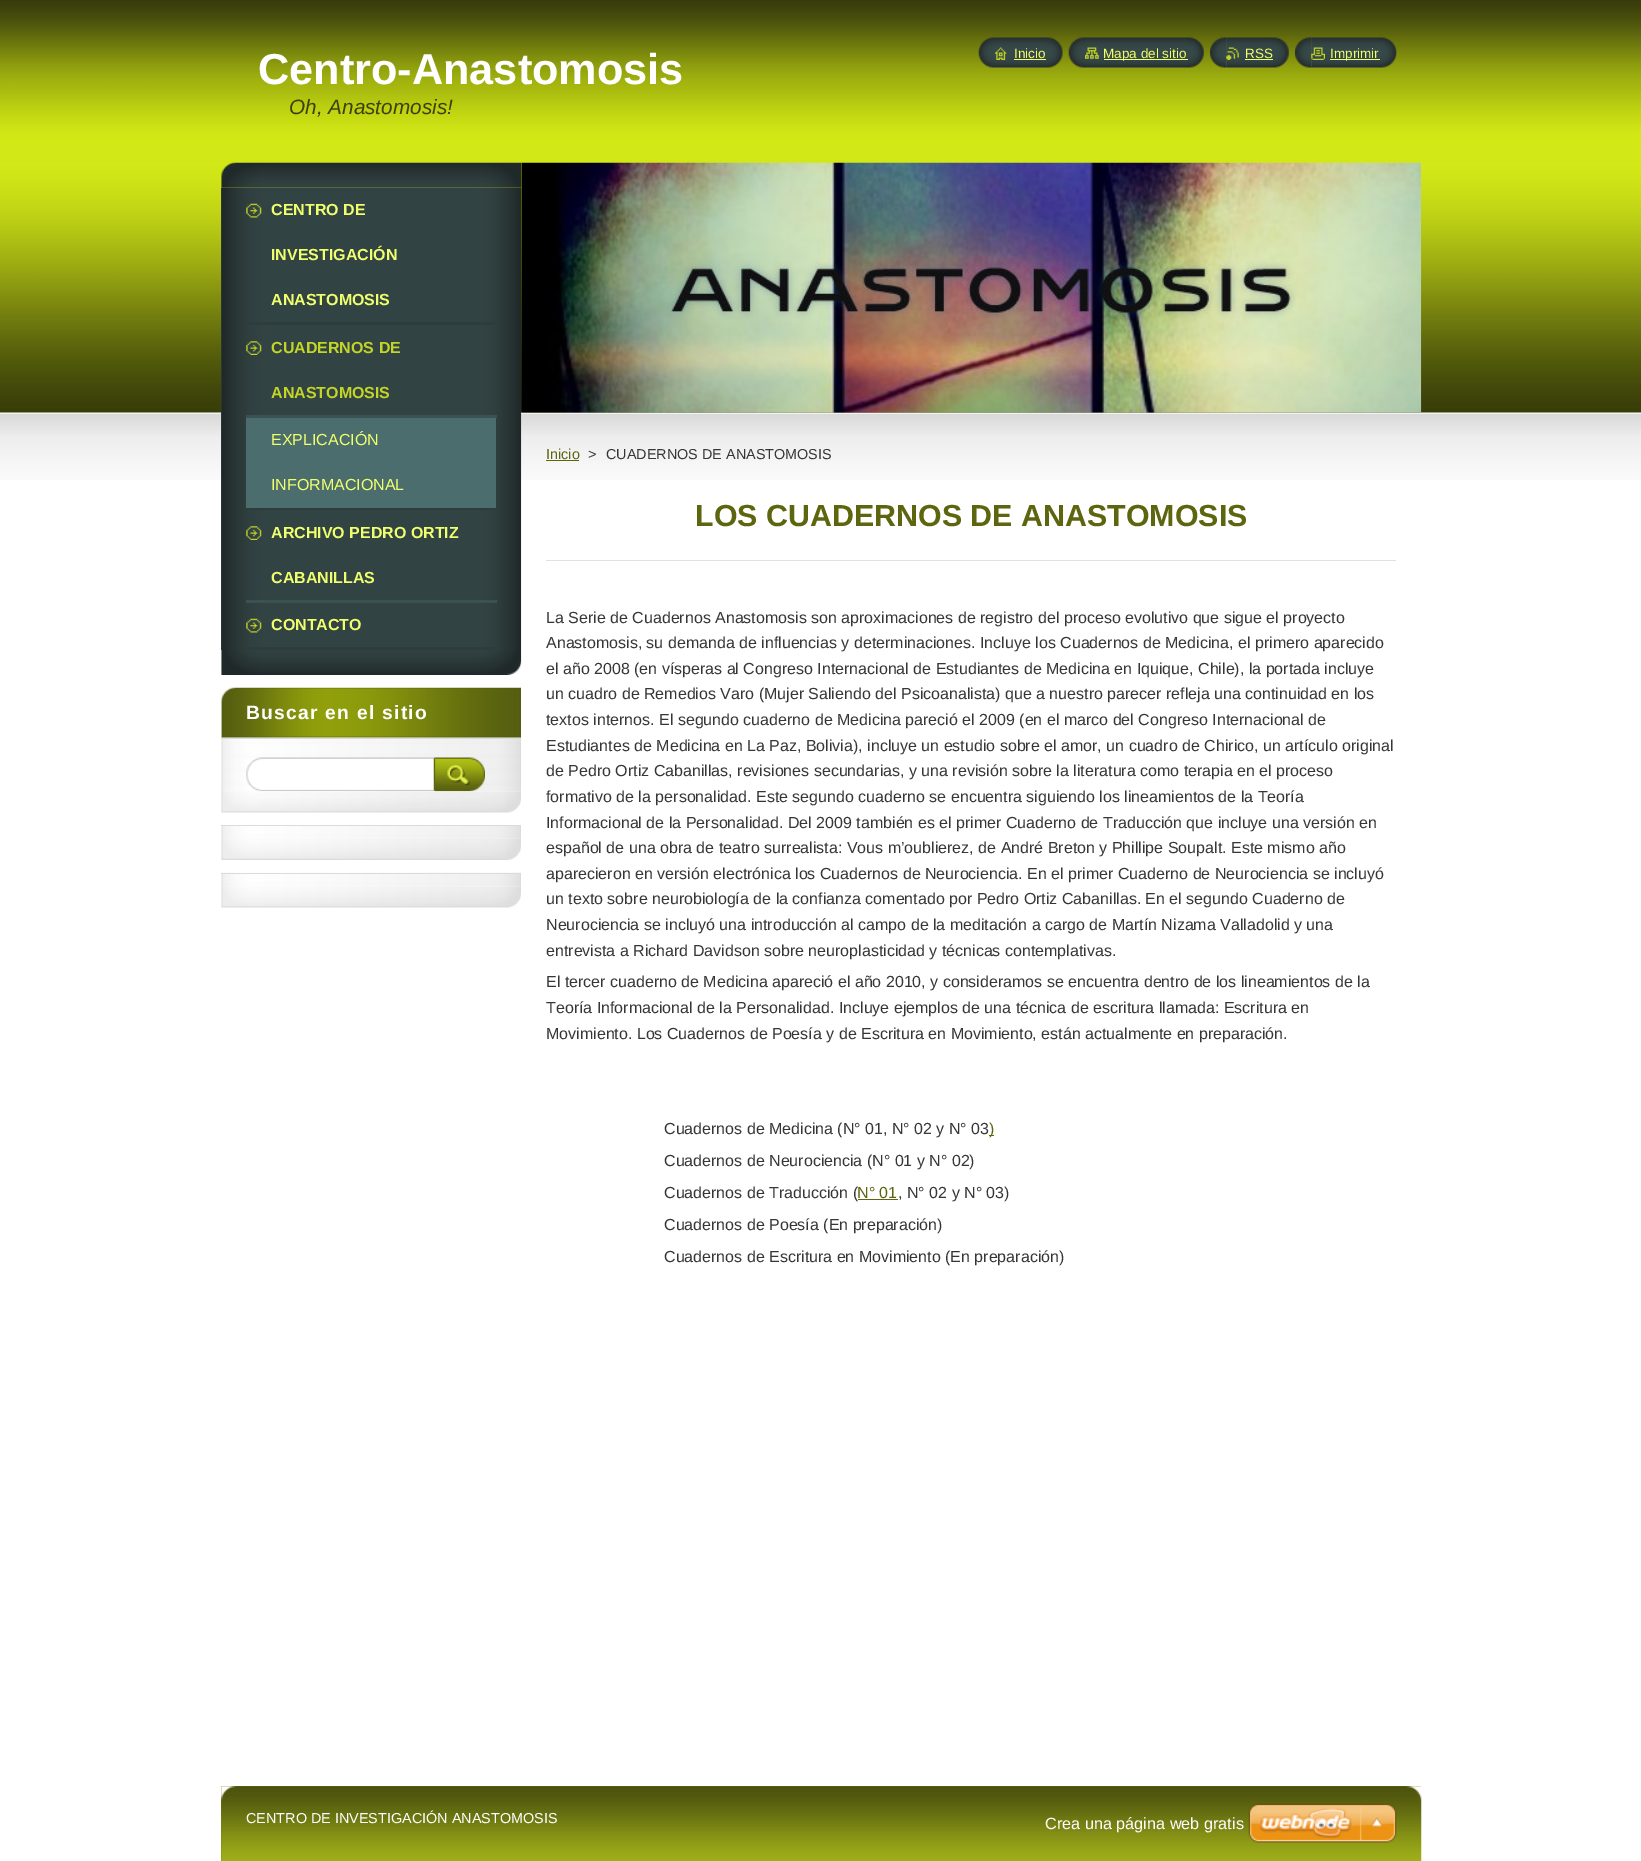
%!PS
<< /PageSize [1641 1861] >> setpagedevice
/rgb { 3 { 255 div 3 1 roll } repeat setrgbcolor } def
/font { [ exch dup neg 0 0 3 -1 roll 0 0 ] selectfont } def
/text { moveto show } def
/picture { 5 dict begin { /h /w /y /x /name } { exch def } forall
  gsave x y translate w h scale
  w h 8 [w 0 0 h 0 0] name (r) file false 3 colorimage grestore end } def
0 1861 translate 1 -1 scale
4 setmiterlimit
255 255 255 rgb
0 0 1641 1861 rectfill
(img_01.rgb) 0 0 1641 480 picture
(img_02.rgb) 978 37 17 31 picture
(img_03.rgb) 995 37 68 31 picture
(img_04.rgb) 995 47 12 13 picture
240 255 109 rgb
1014 59 32 1 rectfill
(img_05.rgb) 1068 37 17 31 picture
(img_06.rgb) 1085 37 119 31 picture
(img_07.rgb) 1085 47 14 12 picture
1104 59 84 1 rectfill
(img_08.rgb) 1210 37 17 31 picture
(img_09.rgb) 1226 37 63 31 picture
(img_10.rgb) 1226 47 13 13 picture
1245 59 28 1 rectfill
(img_11.rgb) 1295 37 17 31 picture
(img_12.rgb) 1311 37 86 31 picture
(img_13.rgb) 1311 47 14 13 picture
1330 59 50 1 rectfill
(img_14.rgb) 221 162 301 26 picture
(img_15.rgb) 221 650 301 25 picture
54 72 72 rgb
221 188 1 462 rectfill
(img_16.rgb) 221 187 301 463 picture
45 60 60 rgb
246 322 251 3 rectfill
(img_17.rgb) 246 203 16 15 picture
246 507 251 3 rectfill
(img_18.rgb) 246 341 16 14 picture
58 82 82 rgb
246 415 251 3 rectfill
75 109 109 rgb
246 418 250 90 rectfill
58 82 82 rgb
246 600 251 3 rectfill
(img_18.rgb) 246 526 16 14 picture
45 60 60 rgb
246 647 251 3 rectfill
(img_17.rgb) 246 618 16 15 picture
(img_19.rgb) 221 791 300 22 picture
(img_21.rgb) 221 737 300 54 picture
(img_20.rgb) 221 687 300 51 picture
219 219 219 rgb
221 738 300 1 rectfill
(img_22.rgb) 246 757 189 34 picture
(img_23.rgb) 433 757 52 35 picture
(img_24.rgb) 221 838 300 22 picture
(img_25.rgb) 221 826 300 13 picture
221 825 300 1 rectfill
(img_19.rgb) 221 886 300 22 picture
(img_26.rgb) 221 872 300 14 picture
221 873 300 1 rectfill
(img_27.rgb) 521 162 901 251 picture
93 101 14 rgb
546 460 33 1 rectfill
225 225 225 rgb
546 560 850 1 rectfill
93 101 14 rgb
989 1135 5 1 rectfill
858 1199 40 1 rectfill
114 125 18 rgb
221 1786 1200 75 rectfill
(img_28.rgb) 221 1786 1201 75 picture
(img_29.rgb) 1248 1803 149 40 picture
/LiberationSans-Bold 43.25 font
255 255 255 rgb
(Centro-Anastomosis) 258 84 text
/LiberationSans-Italic 20.75 font
60 65 12 rgb
(Oh, Anastomosis!) 289 114 text
/LiberationSans-Regular 13.5 font
240 255 109 rgb
(Inicio) 1014 58 text
(Mapa del sitio) 1103 58 text
(RSS) 1245 58 text
(Imprimir) 1330 58 text
/LiberationSans-Bold 16 font
(CENTRO DE) 271 215 text
(INVESTIGACIÓN) 271 260 text
(ANASTOMOSIS) 271 305 text
195 213 38 rgb
(CUADERNOS DE) 271 353 text
(ANASTOMOSIS) 271 398 text
/LiberationSans-Regular 16 font
240 255 109 rgb
(EXPLICACIÓN) 271 445 text
(INFORMACIONAL) 271 490 text
/LiberationSans-Bold 16 font
(ARCHIVO PEDRO ORTIZ) 271 538 text
(CABANILLAS) 271 583 text
(CONTACTO) 271 630 text
/LiberationSans-Bold 19.25 font
255 255 255 rgb
246 719 moveto 1.25 0 (Buscar en el sitio) ashow
/LiberationSans-Regular 14.4 font
93 101 14 rgb
(Inicio) 546 459 text
54 54 54 rgb
(>) 588 459 text
(CUADERNOS DE ANASTOMOSIS) 606 459 text
/LiberationSans-Bold 30.4 font
93 101 14 rgb
(LOS CUADERNOS DE ANASTOMOSIS) 695 526 text
/LiberationSans-Regular 16 font
54 54 54 rgb
(La Serie de Cuadernos Anastomosis son aproximaciones de registro del proceso evolutivo que sigue el proyecto) 546 623 text
(Anastomosis, su demanda de influencias y determinaciones. Incluye los Cuadernos de Medicina, el primero aparecido) 546 648 text
(el año 2008 \(en vísperas al Congreso Internacional de Estudiantes de Medicina en Iquique, Chile\), la portada incluye) 546 674 text
(un cuadro de Remedios Varo \(Mujer Saliendo del Psicoanalista\) que a nuestro parecer refleja una continuidad en los) 546 699 text
(textos internos. El segundo cuaderno de Medicina pareció el 2009 \(en el marco del Congreso Internacional de) 546 725 text
(Estudiantes de Medicina en La Paz, Bolivia\), incluye un estudio sobre el amor, un cuadro de Chirico, un artículo original) 546 751 text
(de Pedro Ortiz Cabanillas, revisiones secundarias, y una revisión sobre la literatura como terapia en el proceso) 546 776 text
(formativo de la personalidad. Este segundo cuaderno se encuentra siguiendo los lineamientos de la Teoría) 546 802 text
(Informacional de la Personalidad. Del 2009 también es el primer Cuaderno de Traducción que incluye una versión en) 546 828 text
(español de una obra de teatro surrealista: Vous m’oublierez, de André Breton y Phillipe Soupalt. Este mismo año) 546 853 text
(aparecieron en versión electrónica los Cuadernos de Neurociencia. En el primer Cuaderno de Neurociencia se incluyó) 546 879 text
(un texto sobre neurobiología de la confianza comentado por Pedro Ortiz Cabanillas. En el segundo Cuaderno de) 546 904 text
(Neurociencia se incluyó una introducción al campo de la meditación a cargo de Martín Nizama Valladolid y una) 546 930 text
(entrevista a Richard Davidson sobre neuroplasticidad y técnicas contemplativas.) 546 956 text
(El tercer cuaderno de Medicina apareció el año 2010, y consideramos se encuentra dentro de los lineamientos de la) 546 987 text
(Teoría Informacional de la Personalidad. Incluye ejemplos de una técnica de escritura llamada: Escritura en) 546 1013 text
(Movimiento. Los Cuadernos de Poesía y de Escritura en Movimiento, están actualmente en preparación.) 546 1039 text
(Cuadernos de Medicina \(N° 01, N° 02 y N° 03) 664 1134 text
93 101 14 rgb
(\)) 989 1134 text
54 54 54 rgb
(Cuadernos de Neurociencia \(N° 01 y N° 02\)) 664 1166 text
(Cuadernos de Traducción \() 664 1198 text
93 101 14 rgb
(N° 01) 857 1198 text
54 54 54 rgb
(, N° 02 y N° 03\)) 898 1198 text
(Cuadernos de Poesía \(En preparación\)) 664 1230 text
(Cuadernos de Escritura en Movimiento \(En preparación\)) 664 1262 text
/LiberationSans-Regular 14.4 font
255 255 255 rgb
(CENTRO DE INVESTIGACIÓN ANASTOMOSIS) 246 1823 text
/LiberationSans-Regular 16.25 font
(Crea una página web gratis) 1045 1829 text
showpage
